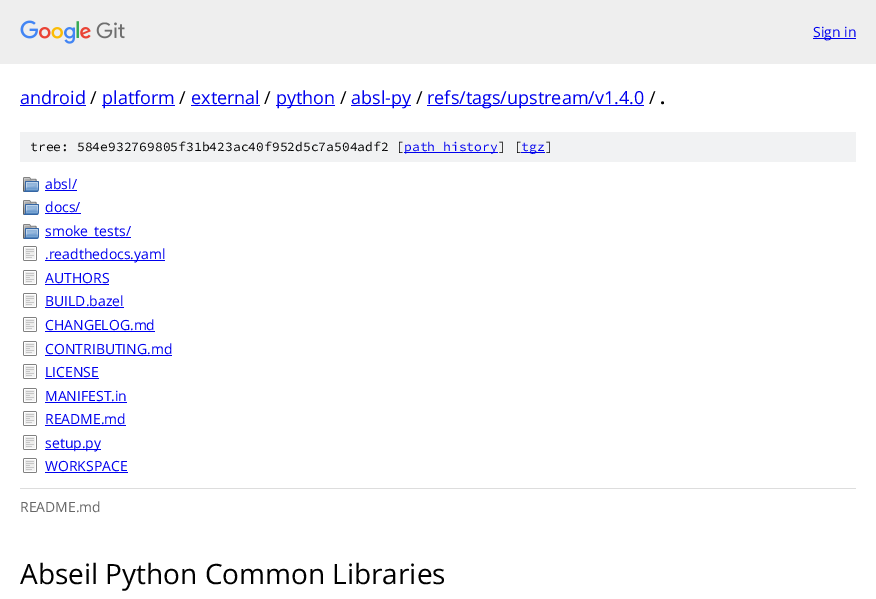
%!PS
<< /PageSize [876 599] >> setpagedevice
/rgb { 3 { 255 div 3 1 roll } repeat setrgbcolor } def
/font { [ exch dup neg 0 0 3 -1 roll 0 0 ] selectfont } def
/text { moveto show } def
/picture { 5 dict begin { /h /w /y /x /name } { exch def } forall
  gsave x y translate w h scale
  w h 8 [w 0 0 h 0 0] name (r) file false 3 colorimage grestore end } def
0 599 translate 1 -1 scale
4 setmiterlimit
255 255 255 rgb
0 0 876 599 rectfill
238 238 238 rgb
0 0 876 64 rectfill
(img_01.rgb) 20 20 105 24 picture
0 0 238 rgb
813 38 43 1 rectfill
20 105 66 1 rectfill
102 105 73 1 rectfill
191 105 69 1 rectfill
276 105 59 1 rectfill
351 105 60 1 rectfill
427 105 217 1 rectfill
241 242 243 rgb
20 132 836 30 rectfill
0 0 238 rgb
404 152 94 1 rectfill
521 152 24 1 rectfill
(img_02.rgb) 23 177 16 15 picture
45 190 32 1 rectfill
(img_02.rgb) 23 200 16 15 picture
45 213 36 1 rectfill
(img_02.rgb) 23 224 16 15 picture
45 237 86 1 rectfill
(img_03.rgb) 23 246 14 15 picture
45 260 120 1 rectfill
(img_03.rgb) 23 270 14 15 picture
45 284 64 1 rectfill
(img_03.rgb) 23 293 14 15 picture
45 307 79 1 rectfill
(img_03.rgb) 23 317 14 15 picture
45 331 110 1 rectfill
(img_03.rgb) 23 341 14 15 picture
45 355 127 1 rectfill
(img_03.rgb) 23 364 14 15 picture
45 378 54 1 rectfill
(img_03.rgb) 23 388 14 15 picture
45 402 82 1 rectfill
(img_03.rgb) 23 411 14 15 picture
45 425 81 1 rectfill
(img_03.rgb) 23 435 14 15 picture
45 449 56 1 rectfill
(img_03.rgb) 23 458 14 15 picture
45 472 83 1 rectfill
221 221 221 rgb
20 488 836 1 rectfill
/OpenSans-Regular 14 font
0 0 238 rgb
(Sign in) 813 37 text
/OpenSans-Regular 18 font
(android) 20 104 text
0 0 0 rgb
(/) 90 104 text
0 0 238 rgb
(platform) 102 104 text
0 0 0 rgb
(/) 179 104 text
0 0 238 rgb
(external) 191 104 text
0 0 0 rgb
(/) 264 104 text
0 0 238 rgb
(python) 276 104 text
0 0 0 rgb
(/) 340 104 text
0 0 238 rgb
(absl-py) 351 104 text
0 0 0 rgb
(/) 416 104 text
0 0 238 rgb
(refs/tags/upstream/v1.4.0) 427 104 text
0 0 0 rgb
(/) 649 104 text
/OpenSans-Bold 18 font
(.) 660 104 text
/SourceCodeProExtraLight-ExtraLight 13 font
(tree: 584e932769805f31b423ac40f952d5c7a504adf2 [) 30 151 text
0 0 238 rgb
(path history) 404 151 text
0 0 0 rgb
(] [) 498 151 text
0 0 238 rgb
(tgz) 521 151 text
0 0 0 rgb
(]) 545 151 text
/OpenSans-Regular 14 font
0 0 238 rgb
(absl/) 45 189 text
(docs/) 45 212 text
(smoke_tests/) 45 236 text
(.readthedocs.yaml) 45 259 text
(AUTHORS) 45 283 text
(BUILD.bazel) 45 306 text
(CHANGELOG.md) 45 330 text
(CONTRIBUTING.md) 45 354 text
(LICENSE) 45 377 text
(MANIFEST.in) 45 401 text
(README.md) 45 424 text
(setup.py) 45 448 text
(WORKSPACE) 45 471 text
102 102 102 rgb
(README.md) 20 512 text
/OpenSans-Regular 28 font
0 0 0 rgb
(Abseil Python Common Libraries) 20 584 text
showpage
